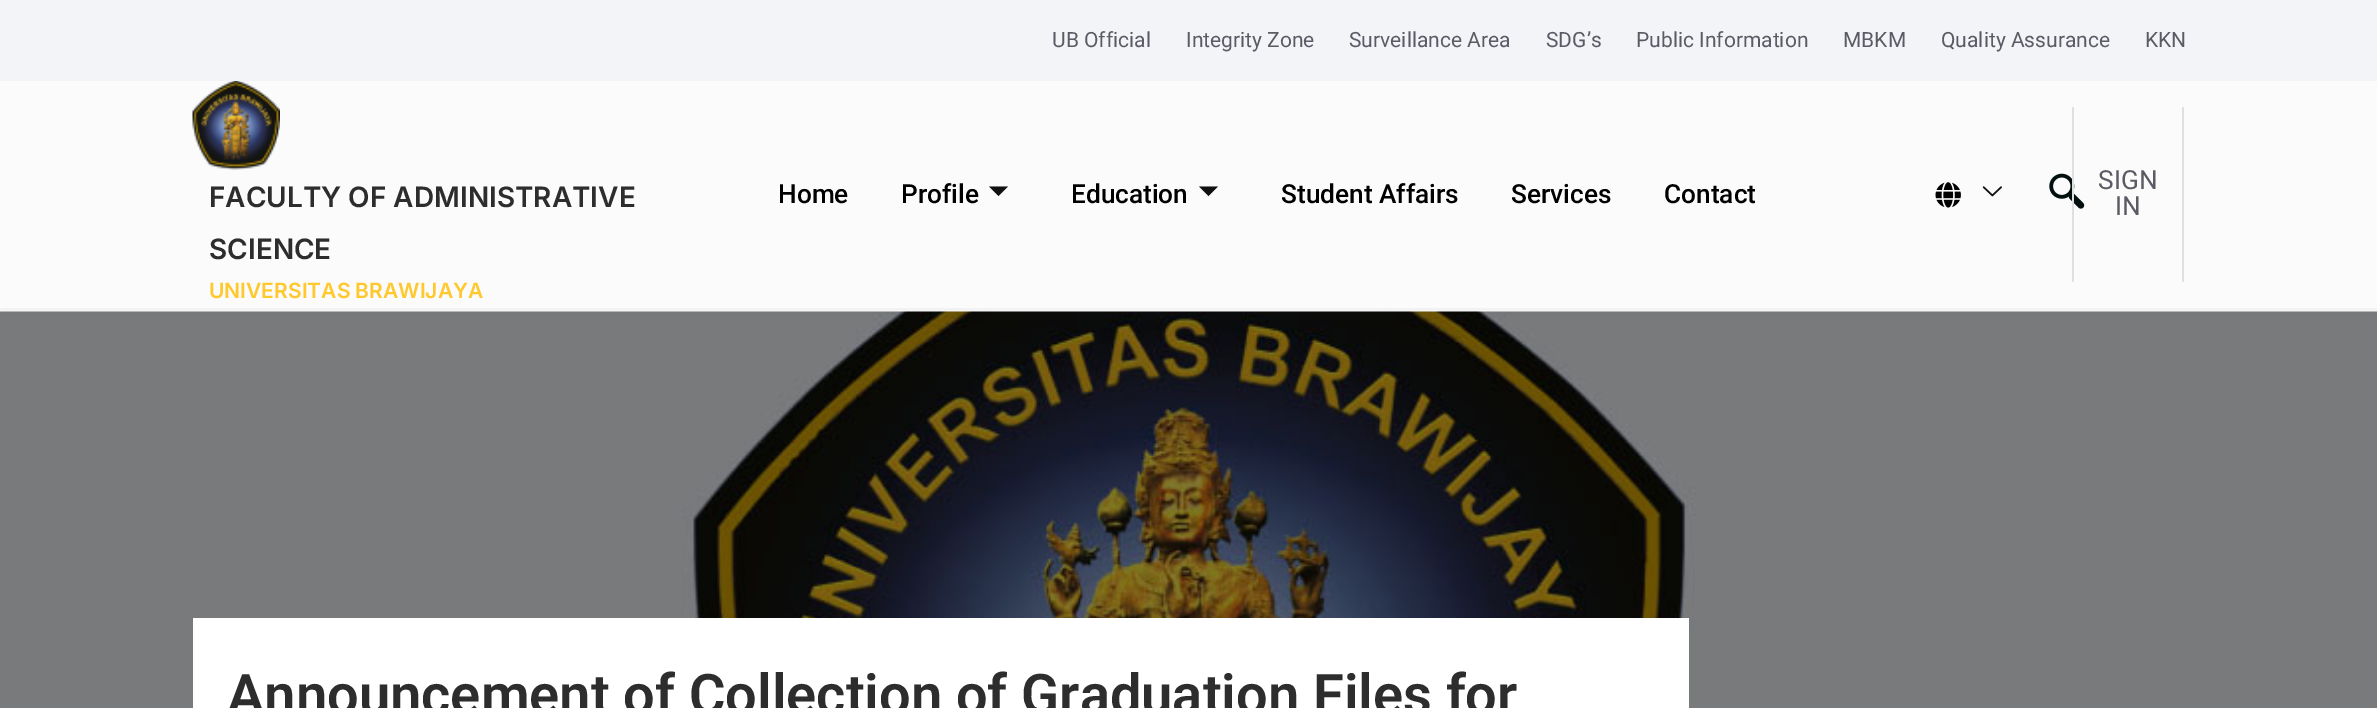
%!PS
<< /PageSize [2377 708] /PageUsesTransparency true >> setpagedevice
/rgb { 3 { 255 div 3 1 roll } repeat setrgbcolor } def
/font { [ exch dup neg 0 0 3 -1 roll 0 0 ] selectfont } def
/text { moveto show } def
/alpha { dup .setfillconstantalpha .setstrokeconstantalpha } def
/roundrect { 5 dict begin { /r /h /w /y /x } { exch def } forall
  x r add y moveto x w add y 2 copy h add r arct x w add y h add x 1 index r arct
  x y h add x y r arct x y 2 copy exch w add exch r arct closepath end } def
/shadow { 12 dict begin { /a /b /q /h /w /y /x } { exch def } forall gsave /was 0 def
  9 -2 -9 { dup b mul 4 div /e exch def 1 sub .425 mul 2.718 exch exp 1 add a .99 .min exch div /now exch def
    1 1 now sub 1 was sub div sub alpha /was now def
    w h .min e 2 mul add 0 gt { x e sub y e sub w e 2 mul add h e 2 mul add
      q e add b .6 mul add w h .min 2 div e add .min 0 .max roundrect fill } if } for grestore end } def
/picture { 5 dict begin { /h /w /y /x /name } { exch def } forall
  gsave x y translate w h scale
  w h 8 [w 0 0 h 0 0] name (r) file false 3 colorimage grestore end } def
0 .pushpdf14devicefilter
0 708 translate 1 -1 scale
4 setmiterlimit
255 255 255 rgb
0 0 2377 708 rectfill
(img_05.rgb) 0 311 2377 397 picture
0 0 0 rgb
0 81 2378 227 0 9 0.1 shadow
242 244 248 rgb
0 0 2377 81 rectfill
251 251 251 rgb
0 81 2377 227 rectfill
(img_01.rgb) 192 81 88 89 picture
16 16 16 rgb
989 186.5 moveto 19 0 rlineto -9.5 9.5 rlineto closepath fill
1199 186.5 moveto 19 0 rlineto -9.5 9.5 rlineto closepath fill
(img_02.rgb) 1935 182 26 26 picture
(img_03.rgb) 1982 186 20 11 picture
(img_04.rgb) 2049 173 36 36 picture
224 224 224 rgb
2182 107 2 175 rectfill
2072 107 2 175 rectfill
255 255 255 rgb
193 618 1496 90 rectfill
/Roboto-Regular 21 font
91 91 101 rgb
(UB Official) 1052 47 text
(Integrity Zone) 1186 47 text
(Surveillance Area) 1349 47 text
(SDG’s) 1546 47 text
(Public Information) 1636 47 text
(MBKM) 1843 47 text
(Quality Assurance) 1941 47 text
(KKN) 2145 47 text
/Inter-SemiBold 28 font
45 45 45 rgb
(FACULTY OF ADMINISTRATIVE) 209 207 text
(SCIENCE) 209 259 text
/Inter-SemiBold 21 font
255 200 44 rgb
(UNIVERSITAS BRAWIJAYA) 209 298 text
/Roboto-Medium 26.25 font
0 0 0 rgb
(Home) 778 203 text
(Profile) 901 203 text
(Education) 1071 203 text
(Student Affairs) 1281 203 text
(Services) 1511 203 text
(Contact) 1664 203 text
/Roboto-Regular 26.25 font
91 91 101 rgb
(SIGN) 2098 189 text
(IN) 2115 215 text
/Roboto-SemiBold 56 font
45 45 45 rgb
(Announcement of Collection of Graduation Files for) 227 714 text
.poppdf14devicefilter showpage
